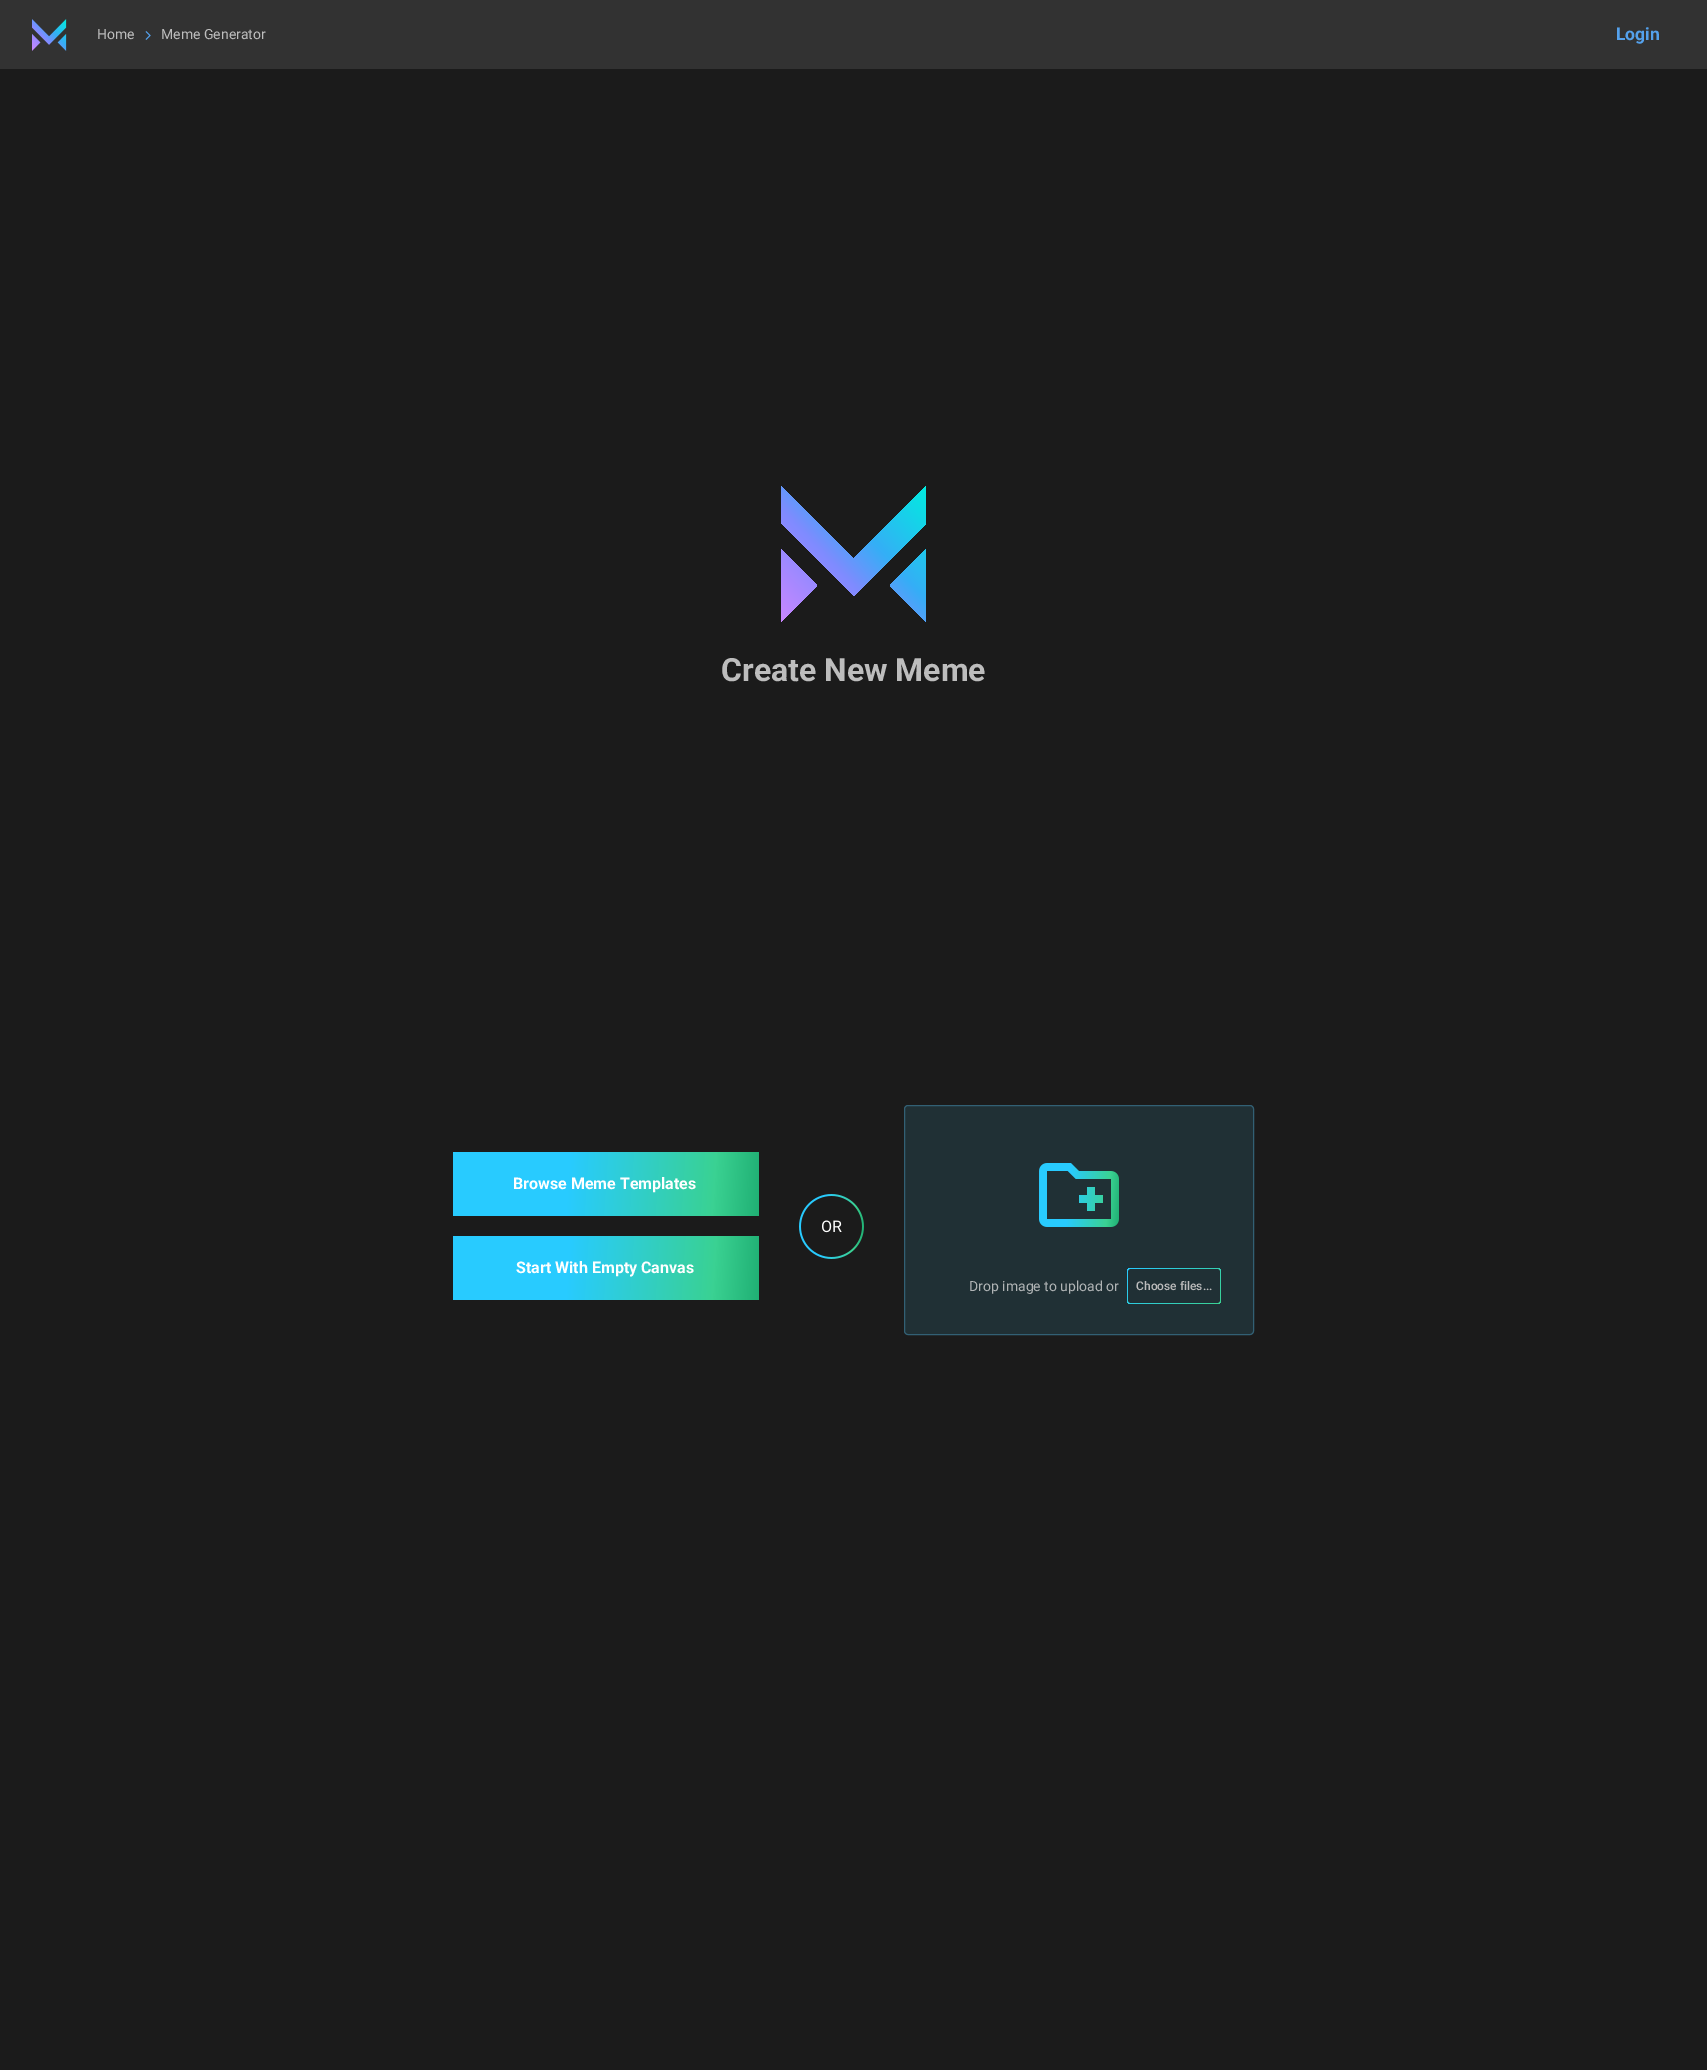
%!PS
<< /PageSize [1707 2070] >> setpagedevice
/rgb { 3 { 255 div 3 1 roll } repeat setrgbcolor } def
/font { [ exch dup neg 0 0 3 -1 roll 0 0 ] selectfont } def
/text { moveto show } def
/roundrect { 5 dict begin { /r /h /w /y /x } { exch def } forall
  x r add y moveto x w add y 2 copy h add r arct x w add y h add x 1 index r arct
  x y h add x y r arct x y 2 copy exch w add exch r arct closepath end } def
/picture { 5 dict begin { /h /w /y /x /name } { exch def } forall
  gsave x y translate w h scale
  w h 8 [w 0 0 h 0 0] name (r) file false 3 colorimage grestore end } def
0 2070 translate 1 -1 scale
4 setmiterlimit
27 27 27 rgb
0 0 1707 2070 rectfill
50 50 50 rgb
0 0 1707 69 rectfill
(img_01.rgb) 32 19 35 32 picture
84 161 236 rgb
146 31.5 moveto 4 4 rlineto -4 4 rlineto stroke
gsave 781 523 moveto 0 -37 rlineto 73 73 rlineto 72 -73 rlineto 0 37 rlineto -72 73 rlineto closepath clip newpath
<< /ShadingType 2 /ColorSpace /DeviceRGB /Coords [926 486 781 622] /Extend [true true] /Function << /FunctionType 3 /Domain [0 1] /Functions [<< /FunctionType 2 /Domain [0 1] /C0 [0.004 0.925 0.878] /C1 [0.208 0.682 0.965] /N 1 >> << /FunctionType 2 /Domain [0 1] /C0 [0.208 0.682 0.965] /C1 [0.502 0.545 1] /N 1 >> << /FunctionType 2 /Domain [0 1] /C0 [0.502 0.545 1] /C1 [0.792 0.529 1] /N 1 >>] /Bounds [0.39 0.61] /Encode [0 1 0 1 0 1] >> >> shfill grestore
gsave 781 549 moveto 36 37 rlineto -36 36 rlineto closepath clip newpath
<< /ShadingType 2 /ColorSpace /DeviceRGB /Coords [926 486 781 622] /Extend [true true] /Function << /FunctionType 3 /Domain [0 1] /Functions [<< /FunctionType 2 /Domain [0 1] /C0 [0.004 0.925 0.878] /C1 [0.208 0.682 0.965] /N 1 >> << /FunctionType 2 /Domain [0 1] /C0 [0.208 0.682 0.965] /C1 [0.502 0.545 1] /N 1 >> << /FunctionType 2 /Domain [0 1] /C0 [0.502 0.545 1] /C1 [0.792 0.529 1] /N 1 >>] /Bounds [0.39 0.61] /Encode [0 1 0 1 0 1] >> >> shfill grestore
gsave 926 549 moveto -36 37 rlineto 36 36 rlineto closepath clip newpath
<< /ShadingType 2 /ColorSpace /DeviceRGB /Coords [926 486 781 622] /Extend [true true] /Function << /FunctionType 3 /Domain [0 1] /Functions [<< /FunctionType 2 /Domain [0 1] /C0 [0.004 0.925 0.878] /C1 [0.208 0.682 0.965] /N 1 >> << /FunctionType 2 /Domain [0 1] /C0 [0.208 0.682 0.965] /C1 [0.502 0.545 1] /N 1 >> << /FunctionType 2 /Domain [0 1] /C0 [0.502 0.545 1] /C1 [0.792 0.529 1] /N 1 >>] /Bounds [0.39 0.61] /Encode [0 1 0 1 0 1] >> >> shfill grestore
gsave 453 1152 306 64 3 roundrect clip newpath
<< /ShadingType 2 /ColorSpace /DeviceRGB /Coords [452 1174 784 1196] /Extend [true true] /Function << /FunctionType 3 /Domain [0 1] /Functions [<< /FunctionType 2 /Domain [0 1] /C0 [0.157 0.796 1] /C1 [0.157 0.796 1] /N 1 >> << /FunctionType 2 /Domain [0 1] /C0 [0.157 0.796 1] /C1 [0.227 0.82 0.573] /N 1 >> << /FunctionType 2 /Domain [0 1] /C0 [0.227 0.82 0.573] /C1 [0.071 0.624 0.392] /N 1 >>] /Bounds [0.35 0.79] /Encode [0 1 0 1 0 1] >> >> shfill grestore
gsave 453 1236 306 64 3 roundrect clip newpath
<< /ShadingType 2 /ColorSpace /DeviceRGB /Coords [452 1258 784 1280] /Extend [true true] /Function << /FunctionType 3 /Domain [0 1] /Functions [<< /FunctionType 2 /Domain [0 1] /C0 [0.157 0.796 1] /C1 [0.157 0.796 1] /N 1 >> << /FunctionType 2 /Domain [0 1] /C0 [0.157 0.796 1] /C1 [0.227 0.82 0.573] /N 1 >> << /FunctionType 2 /Domain [0 1] /C0 [0.227 0.82 0.573] /C1 [0.071 0.624 0.392] /N 1 >>] /Bounds [0.35 0.79] /Encode [0 1 0 1 0 1] >> >> shfill grestore
(img_02.rgb) 799 1194 65 65 picture
32 48 53 rgb
904.5 1105.5 349 229 3.5 roundrect gsave fill grestore
50 96 116 rgb
stroke
(img_03.rgb) 1039 1163 80 64 picture
gsave 1127 1268 94 36 4 roundrect clip newpath
<< /ShadingType 2 /ColorSpace /DeviceRGB /Coords [1142 1254 1207 1319] /Extend [true true] /Function << /FunctionType 2 /Domain [0 1] /C0 [0.157 0.796 1] /C1 [0.227 0.82 0.573] /N 1 >> >> shfill grestore
32 48 53 rgb
1128 1269 92 34 3 roundrect fill
/Roboto-Regular 14 font
189 189 189 rgb
(Home) 97 39 text
(Meme Generator) 161 39 text
/Roboto-Bold 17.5 font
84 161 236 rgb
(Login) 1616 40 text
/Roboto-Bold 32 font
189 189 189 rgb
(Create New Meme) 721 681 text
/Roboto-Bold 16 font
255 255 255 rgb
(Browse Meme Templates) 513 1189 text
(Start With Empty Canvas) 516 1273 text
/Roboto-Regular 14 font
176 180 181 rgb
(Drop image to upload or) 969 1291 text
/Roboto-Medium 12 font
189 189 189 rgb
(Choose files...) 1136 1290 text
showpage
